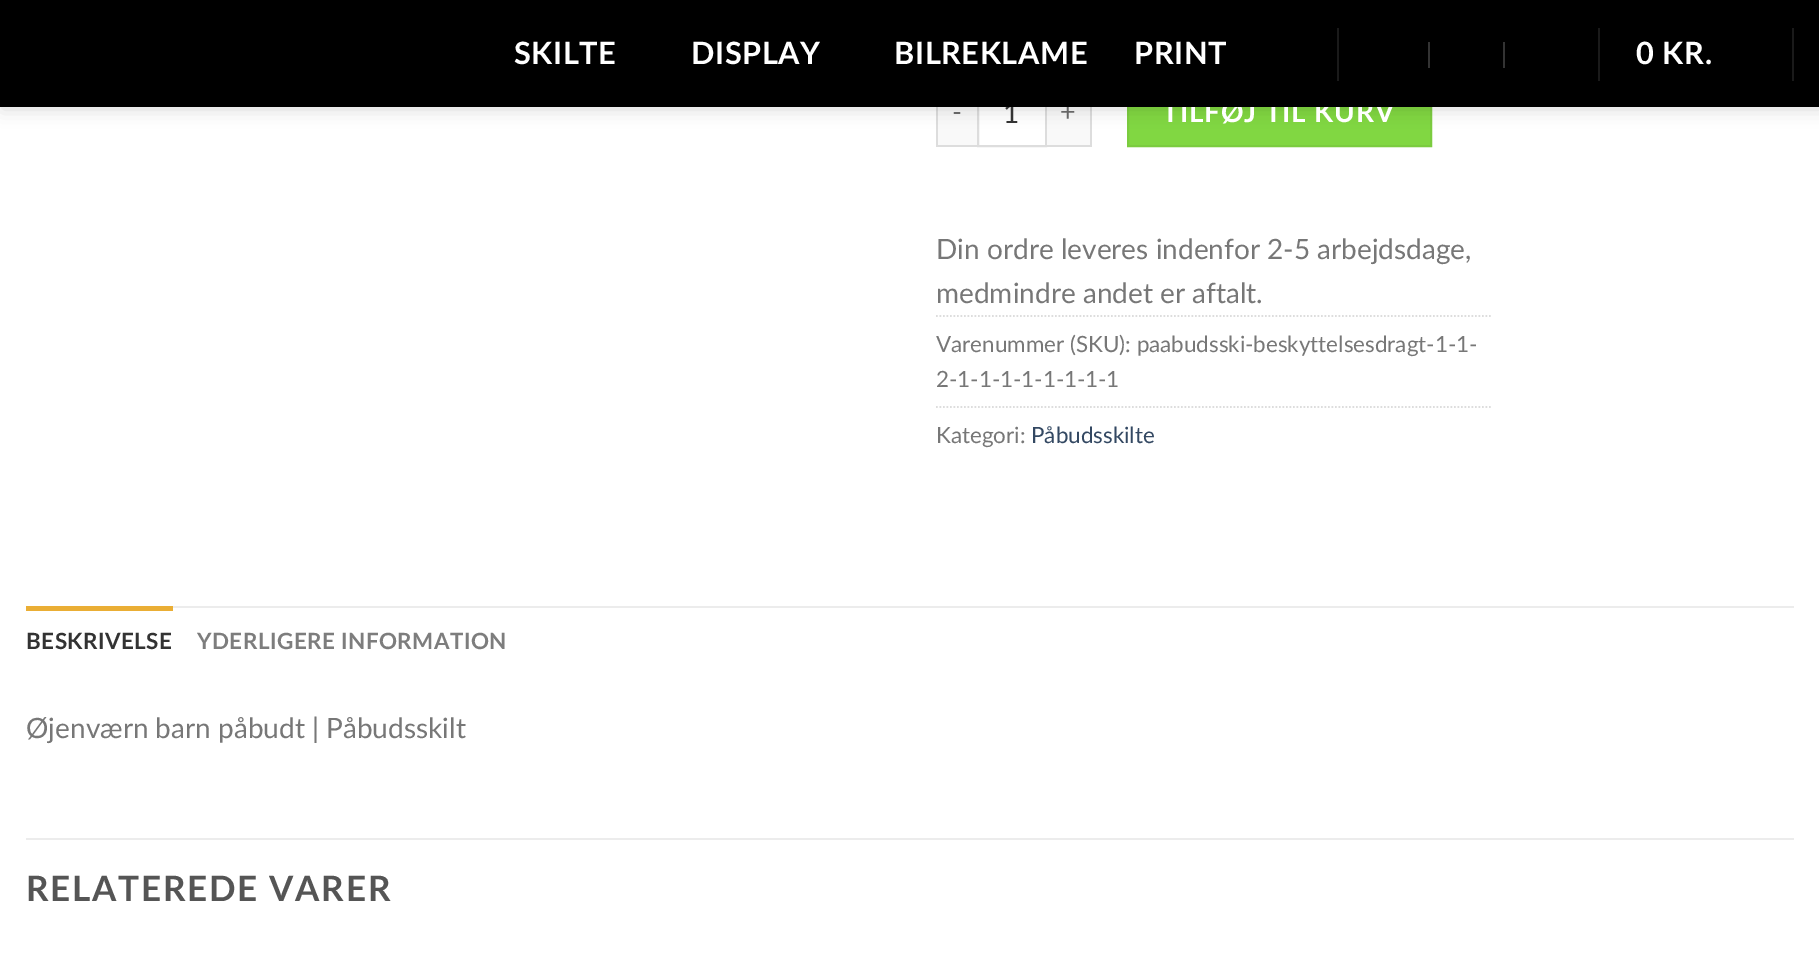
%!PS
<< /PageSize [1819 956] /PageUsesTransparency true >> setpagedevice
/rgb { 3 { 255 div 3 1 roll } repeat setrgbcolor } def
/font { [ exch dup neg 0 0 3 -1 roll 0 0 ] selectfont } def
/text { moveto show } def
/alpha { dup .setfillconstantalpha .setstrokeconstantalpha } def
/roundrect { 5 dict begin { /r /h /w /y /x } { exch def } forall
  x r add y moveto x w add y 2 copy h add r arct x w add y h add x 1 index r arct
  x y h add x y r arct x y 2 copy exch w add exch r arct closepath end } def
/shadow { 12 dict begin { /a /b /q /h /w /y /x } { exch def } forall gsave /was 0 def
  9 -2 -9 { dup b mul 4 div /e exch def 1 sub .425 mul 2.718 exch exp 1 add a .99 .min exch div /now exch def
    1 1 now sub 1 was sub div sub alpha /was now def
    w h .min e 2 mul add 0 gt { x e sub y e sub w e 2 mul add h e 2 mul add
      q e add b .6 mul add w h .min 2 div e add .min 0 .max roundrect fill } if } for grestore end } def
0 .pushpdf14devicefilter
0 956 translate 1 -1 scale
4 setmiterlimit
255 255 255 rgb
0 0 1819 956 rectfill
249 249 249 rgb
938 107 39 38 rectfill
221 221 221 rgb
936 145 41 2 rectfill
936 107 2 40 rectfill
2 setlinewidth
978 78 68 68 rectstroke
249 249 249 rgb
1047 107 43 38 rectfill
221 221 221 rgb
1090 107 2 40 rectfill
129 215 66 rgb
1129 107 301 38 rectfill
123 204 63 rgb
1128 78 303 68 rectstroke
0 0 0 rgb
2 2 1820 107 0 9 0.15 shadow
221 221 221 rgb
1047 145 45 2 rectfill
1.8 setlinewidth
[1.75 1.75] 0 setdash
936 316 moveto 555 0 rlineto stroke
936 407 moveto 555 0 rlineto stroke
236 236 236 rgb
173 606 1621 2 rectfill
234 174 53 rgb
26 606 147 5 rectfill
236 236 236 rgb
26 838 1768 2 rectfill
/Lato-Regular 27 font
102 102 102 rgb
952 121 moveto 1 0 (-) ashow
/Lato-Regular 28 font
51 51 51 rgb
(1) 1003 123 text
/Lato-Regular 27 font
102 102 102 rgb
1060 121 moveto 1 0 (+) ashow
/Lato-Bold 28 font
255 255 255 rgb
1162 122 moveto 0.8 0 (TILFØJ TIL KURV) ashow
0 0 0 rgb
0 0 1819 107 rectfill
26 26 26 rgb
1792 28 2 53 rectfill
/Lato-Bold 30.75 font
255 255 255 rgb
1636 64 moveto 0.6 0 (0 KR.) ashow
26 26 26 rgb
1598 28 2 53 rectfill
51 51 51 rgb
1503 42 2 26 rectfill
1428 42 2 26 rectfill
26 26 26 rgb
1337 28 2 53 rectfill
255 255 255 rgb
1134 64 moveto 0.6 0 (PRINT) ashow
894 64 moveto 0.6 0 (BILREKLAME) ashow
691 64 moveto 0.6 0 (DISPLAY) ashow
514 64 moveto 0.6 0 (SKILTE) ashow
/Lato-Regular 28 font
119 119 119 rgb
(Din ordre leveres indenfor 2-5 arbejdsdage,) 936 259 text
(medmindre andet er aftalt.) 936 303 text
/Lato-Regular 22.4 font
(Varenummer \(SKU\): paabudsski-beskyttelsesdragt-1-1-) 936 352 text
(2-1-1-1-1-1-1-1-1) 936 387 text
(Kategori:) 936 443 text
51 72 98 rgb
(Påbudsskilte) 1031 443 text
/Lato-Bold 22.4 font
51 51 51 rgb
26 649 moveto 0.45 0 (BESKRIVELSE) ashow
125 125 125 rgb
197 649 moveto 0.45 0 (YDERLIGERE INFORMATION) ashow
/Lato-Regular 28 font
119 119 119 rgb
(Øjenværn barn påbudt | Påbudsskilt) 26 738 text
/Lato-Bold 35 font
85 85 85 rgb
26 901 moveto 1.75 0 (RELATEREDE VARER) ashow
.poppdf14devicefilter showpage
